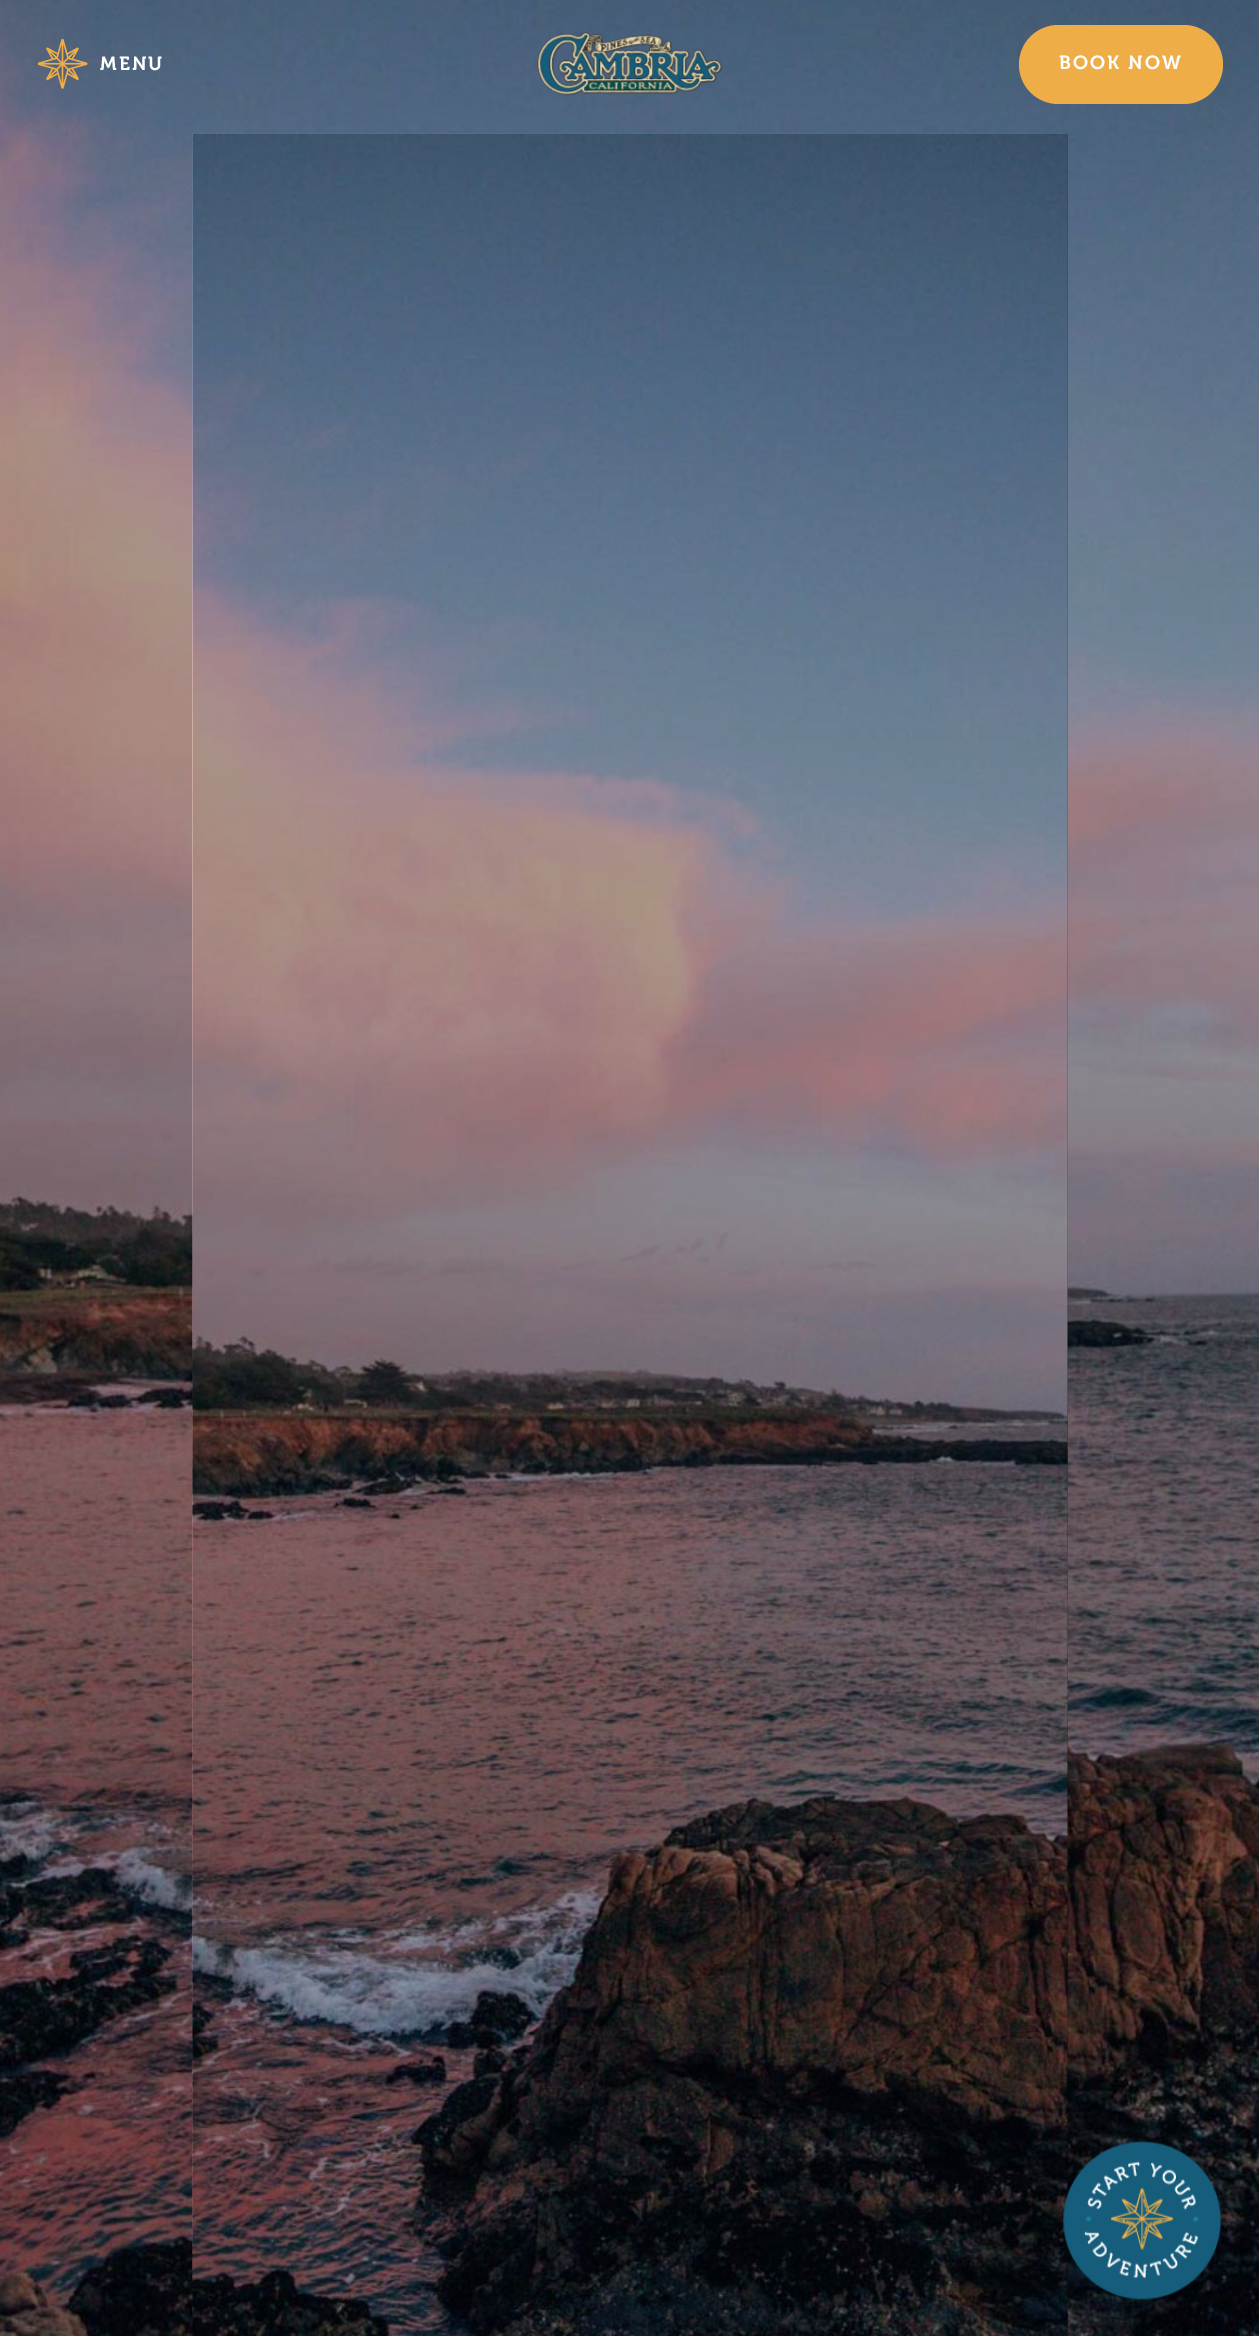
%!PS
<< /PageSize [1259 2336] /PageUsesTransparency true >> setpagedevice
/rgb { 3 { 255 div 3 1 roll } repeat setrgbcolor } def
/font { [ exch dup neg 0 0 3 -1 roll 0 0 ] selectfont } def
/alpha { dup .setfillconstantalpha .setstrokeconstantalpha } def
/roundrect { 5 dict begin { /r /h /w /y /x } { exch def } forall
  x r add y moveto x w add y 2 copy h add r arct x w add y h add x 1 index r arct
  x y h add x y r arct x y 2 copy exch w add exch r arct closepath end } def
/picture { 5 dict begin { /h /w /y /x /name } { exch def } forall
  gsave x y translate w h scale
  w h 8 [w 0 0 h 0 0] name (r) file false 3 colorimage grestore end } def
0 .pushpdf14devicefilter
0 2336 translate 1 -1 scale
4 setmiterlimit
255 255 255 rgb
0 0 1259 2336 rectfill
(img_01.rgb) 0 0 1259 2336 picture
(img_02.rgb) 192 133 876 2203 picture
0.31 alpha
0 0 0 rgb
193 134 875 2202 rectfill
1 alpha
(img_03.rgb) 38 39 50 50 picture
(img_04.rgb) 537 32 186 64 picture
239 173 72 rgb
1019 25 204 79 39.5 roundrect fill
(img_05.rgb) 1063 2140 159 160 picture
/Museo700-SemiBold 19 font
255 255 255 rgb
100 70 moveto 2 0 (MENU) ashow
1059 69 moveto 2 0 (BOOK NOW) ashow
.poppdf14devicefilter showpage
